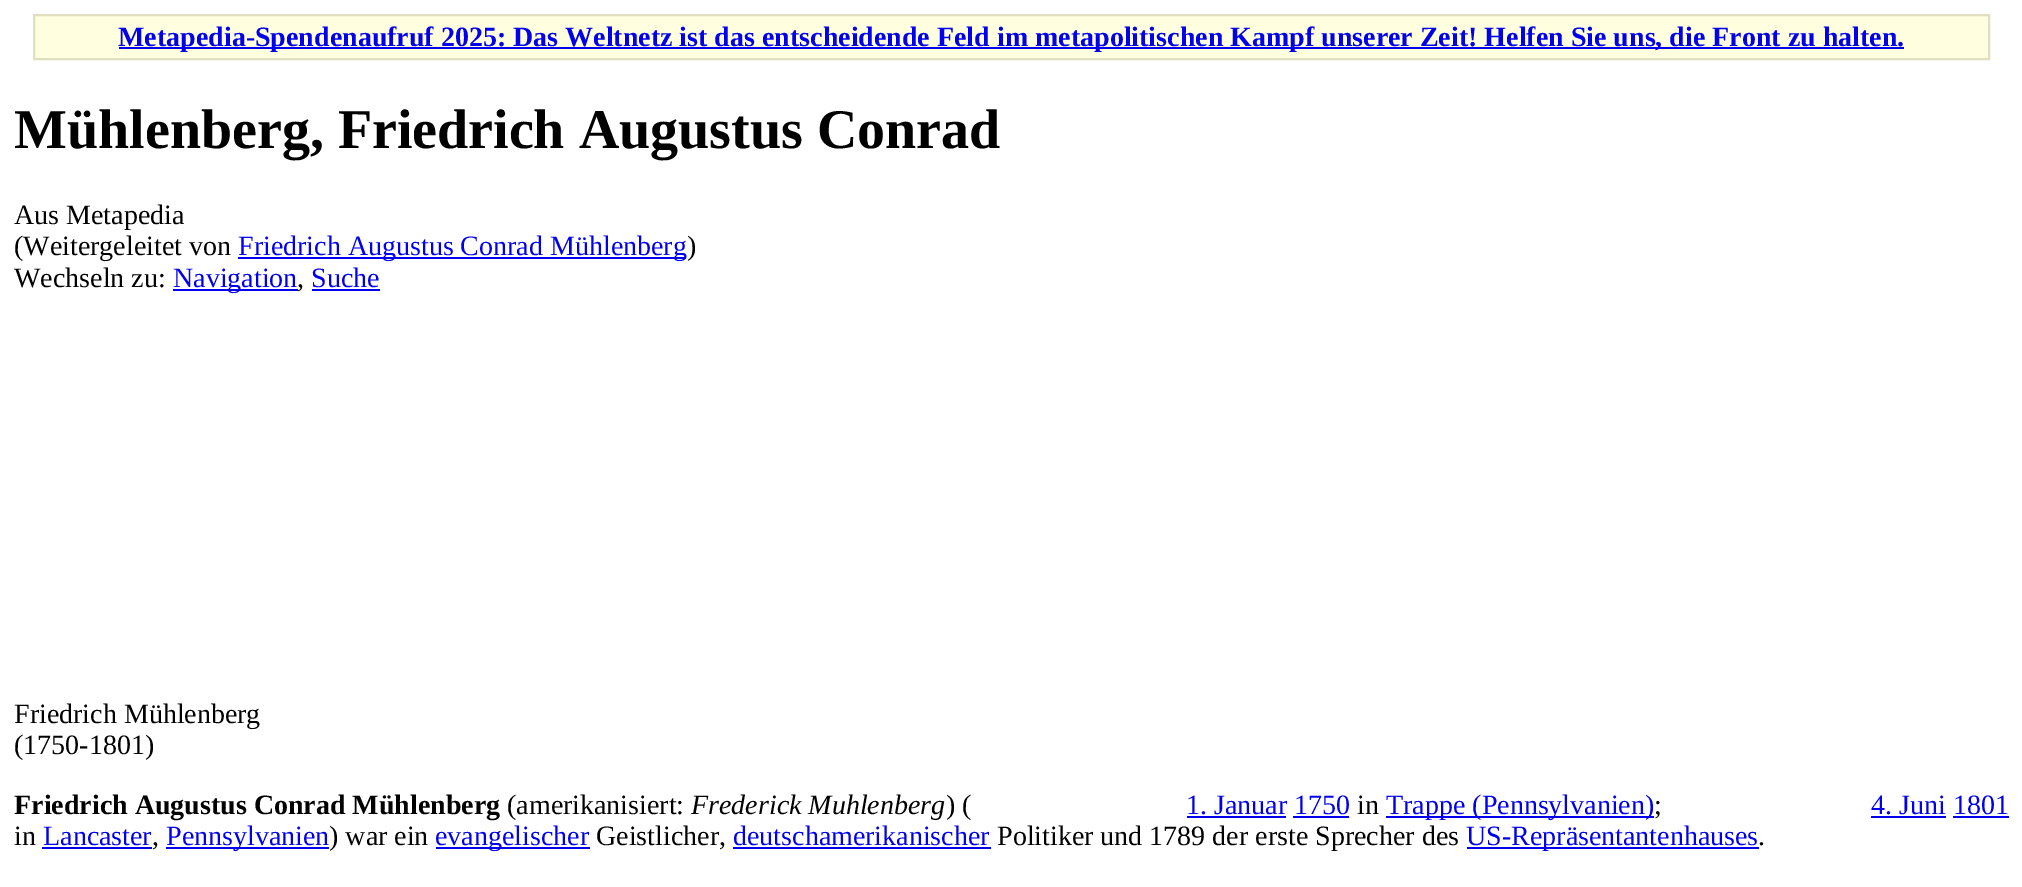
%!PS
<< /PageSize [2022 887] >> setpagedevice
/rgb { 3 { 255 div 3 1 roll } repeat setrgbcolor } def
/font { [ exch dup neg 0 0 3 -1 roll 0 0 ] selectfont } def
/text { moveto show } def
0 887 translate 1 -1 scale
4 setmiterlimit
255 255 255 rgb
0 0 2022 887 rectfill
255 255 224 rgb
34 15 moveto 1955 0 rlineto 0 44 rlineto -1955 0 rlineto closepath gsave fill grestore
224 224 192 rgb
2 setlinewidth
stroke
0 0 238 rgb
119 47 1785 2 rectfill
238 257 448 2 rectfill
173 289 125 2 rectfill
312 289 68 2 rectfill
1187 816 99 2 rectfill
1386 816 268 2 rectfill
1871 816 75 2 rectfill
1293 816 56 2 rectfill
1953 816 56 2 rectfill
42 847 110 2 rectfill
166 847 163 2 rectfill
436 847 154 2 rectfill
733 847 258 2 rectfill
1467 847 292 2 rectfill
/LiberationSerif-Bold 28 font
(Metapedia-Spendenaufruf 2025: Das Weltnetz ist das entscheidende Feld im metapolitischen Kampf unserer Zeit! Helfen Sie uns, die Front zu halten.) 118 46 text
/LiberationSerif-Bold 56 font
0 0 0 rgb
(Mühlenberg, Friedrich Augustus Conrad) 14 148 text
/LiberationSerif-Regular 28 font
(Aus Metapedia) 14 224 text
(\(Weitergeleitet von) 14 255 text
0 0 238 rgb
(Friedrich Augustus Conrad Mühlenberg) 238 255 text
0 0 0 rgb
(\)) 687 255 text
(Wechseln zu:) 14 287 text
0 0 238 rgb
(Navigation) 173 287 text
0 0 0 rgb
(,) 297 287 text
0 0 238 rgb
(Suche) 311 287 text
0 0 0 rgb
(Friedrich Mühlenberg) 14 723 text
(\(1750-1801\)) 14 754 text
/LiberationSerif-Bold 28 font
(Friedrich Augustus Conrad Mühlenberg) 14 814 text
/LiberationSerif-Regular 28 font
(\(amerikanisiert:) 507 814 text
/LiberationSerif-Italic 28 font
(Frederick Muhlenberg) 691 814 text
/LiberationSerif-Regular 28 font
(\) \() 946 814 text
0 0 238 rgb
(1. Januar 1750) 1186 814 text
0 0 0 rgb
(in) 1357 814 text
0 0 238 rgb
(Trappe \(Pennsylvanien\)) 1386 814 text
0 0 0 rgb
(;) 1654 814 text
0 0 238 rgb
(4. Juni 1801) 1871 814 text
0 0 0 rgb
(in) 14 845 text
0 0 238 rgb
(Lancaster) 43 845 text
0 0 0 rgb
(,) 152 845 text
0 0 238 rgb
(Pennsylvanien) 166 845 text
0 0 0 rgb
(\) war ein) 329 845 text
0 0 238 rgb
(evangelischer) 435 845 text
0 0 0 rgb
(Geistlicher,) 596 845 text
0 0 238 rgb
(deutschamerikanischer) 733 845 text
0 0 0 rgb
(Politiker und 1789 der erste Sprecher des) 997 845 text
0 0 238 rgb
(US-Repräsentantenhauses) 1466 845 text
0 0 0 rgb
(.) 1758 845 text
showpage
